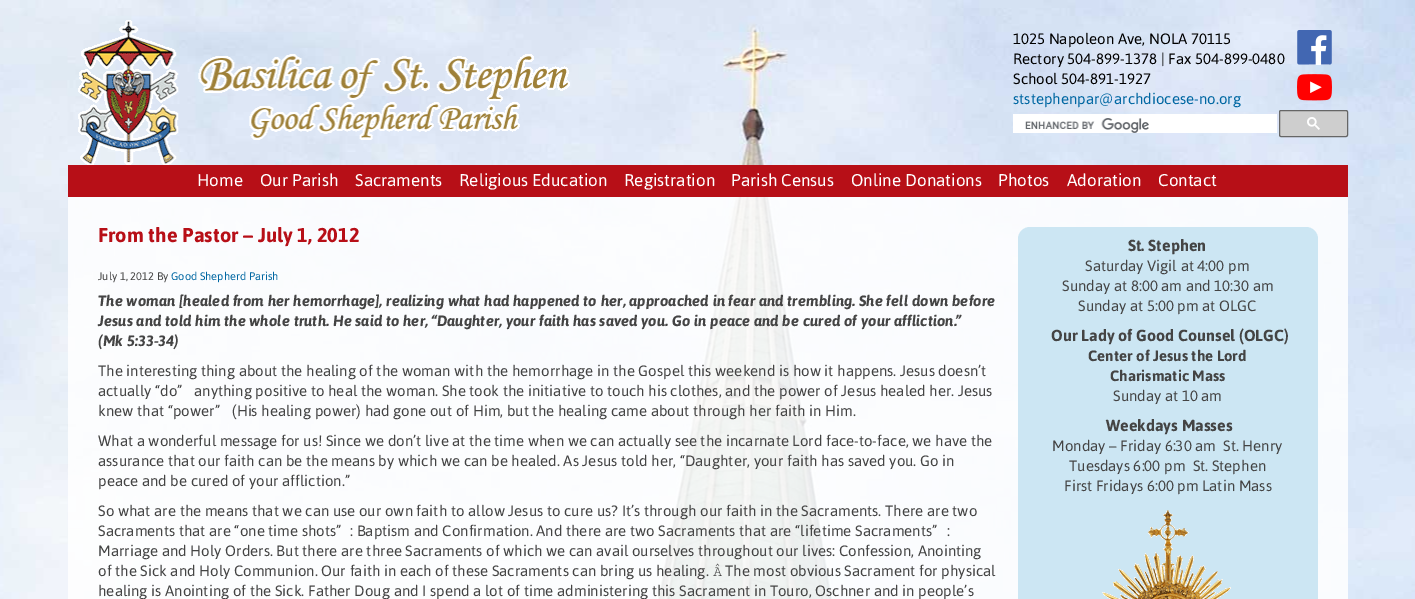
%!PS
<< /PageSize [1415 599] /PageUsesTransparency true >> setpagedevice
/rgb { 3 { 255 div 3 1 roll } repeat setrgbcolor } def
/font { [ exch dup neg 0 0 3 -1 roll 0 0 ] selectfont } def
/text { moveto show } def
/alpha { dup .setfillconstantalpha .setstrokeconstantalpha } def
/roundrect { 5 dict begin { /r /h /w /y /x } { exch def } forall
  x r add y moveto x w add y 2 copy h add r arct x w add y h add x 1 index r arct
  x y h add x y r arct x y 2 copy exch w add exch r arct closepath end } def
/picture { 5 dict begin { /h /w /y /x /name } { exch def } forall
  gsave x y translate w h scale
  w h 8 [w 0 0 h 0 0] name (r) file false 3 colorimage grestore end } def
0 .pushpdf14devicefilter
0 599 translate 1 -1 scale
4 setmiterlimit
255 255 255 rgb
0 0 1415 599 rectfill
(img_01.rgb) 0 0 1415 599 picture
(img_02.rgb) 78 20 492 145 picture
(img_03.rgb) 1297 30 35 35 picture
(img_04.rgb) 1297 74 35 27 picture
1013 114 264 19 rectfill
(img_05.rgb) 1025 118 124 15 picture
206 206 206 rgb
1279.5 110.5 68 26 1.5 roundrect gsave fill grestore
102 102 102 rgb
stroke
(img_06.rgb) 1307 117 13 13 picture
183 15 23 rgb
68 165 1280 32 rectfill
0.85 alpha
255 255 255 rgb
68 197 1280 402 rectfill
1 alpha
204 230 243 rgb
1018 227 300 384 12 roundrect fill
(img_07.rgb) 1102 510 129 89 picture
/Asap-Regular 15 font
0 0 0 rgb
(1025 Napoleon Ave, NOLA 70115) 1013 44 text
(Rectory 504-899-1378 | Fax 504-899-0480) 1013 64 text
(School 504-891-1927) 1013 84 text
0 103 162 rgb
(ststephenpar@archdiocese-no.org) 1013 104 text
/Asap-Regular 17 font
255 255 255 rgb
(Home) 197 186 text
(Our Parish) 260 186 text
(Sacraments) 355 186 text
(Religious Education) 459 186 text
(Registration) 624 186 text
(Parish Census) 731 186 text
(Online Donations) 851 186 text
(Photos) 998 186 text
(Adoration) 1067 186 text
(Contact) 1158 186 text
/Asap-Bold 20 font
183 15 23 rgb
(From the Pastor – July 1, 2012) 98 242 text
/Asap-Regular 11 font
68 68 68 rgb
(July 1, 2012 By) 98 280 text
0 103 162 rgb
(Good Shepherd Parish) 171 280 text
/Asap-BoldItalic 15 font
68 68 68 rgb
(The woman [healed from her hemorrhage], realizing what had happened to her, approached in fear and trembling. She fell down before) 98 306 text
(Jesus and told him the whole truth. He said to her, “Daughter, your faith has saved you. Go in peace and be cured of your affliction.”) 98 326 text
(\(Mk 5:33-34\)) 98 346 text
/Asap-Regular 15 font
(The interesting thing about the healing of the woman with the hemorrhage in the Gospel this weekend is how it happens. Jesus doesn’t) 98 376 text
(actually “do”) 98 396 text
(anything positive to heal the woman. She took the initiative to touch his clothes, and the power of Jesus healed her. Jesus) 194 396 text
(knew that “power”) 98 416 text
(\(His healing power\) had gone out of Him, but the healing came about through her faith in Him.) 232 416 text
(What a wonderful message for us! Since we don’t live at the time when we can actually see the incarnate Lord face-to-face, we have the) 98 446 text
(assurance that our faith can be the means by which we can be healed. As Jesus told her, “Daughter, your faith has saved you. Go in) 98 466 text
(peace and be cured of your affliction.”) 98 486 text
(So what are the means that we can use our own faith to allow Jesus to cure us? It’s through our faith in the Sacraments. There are two) 98 516 text
(Sacraments that are “one time shots”) 98 536 text
(: Baptism and Confirmation. And there are two Sacraments that are “lifetime Sacraments”) 350 536 text
(:) 947 536 text
(Marriage and Holy Orders. But there are three Sacraments of which we can avail ourselves throughout our lives: Confession, Anointing) 98 556 text
(of the Sick and Holy Communion. Our faith in each of these Sacraments can bring us healing.) 98 576 text
/CutiveMono-Regular 15 font
(Â) 713 576 text
/Asap-Regular 15 font
(The most obvious Sacrament for physical) 725 576 text
(healing is Anointing of the Sick. Father Doug and I spend a lot of time administering this Sacrament in Touro, Oschner and in people’s) 98 596 text
/Asap-Bold 16 font
(St. Stephen) 1128 251 text
/Asap-Regular 15 font
(Saturday Vigil at 4:00 pm) 1085 271 text
(Sunday at 8:00 am and 10:30 am) 1062 291 text
(Sunday at 5:00 pm at OLGC) 1078 311 text
/Asap-Bold 16 font
(Our Lady of Good Counsel \(OLGC\)) 1051 341 text
/Asap-Bold 15 font
(Center of Jesus the Lord) 1088 361 text
(Charismatic Mass) 1110 381 text
/Asap-Regular 15 font
(Sunday at 10 am) 1113 401 text
/Asap-Bold 16 font
(Weekdays Masses) 1106 431 text
/Asap-Regular 15 font
(Monday – Friday 6:30 am  St. Henry) 1052 451 text
(Tuesdays 6:00 pm  St. Stephen) 1069 471 text
(First Fridays 6:00 pm Latin Mass) 1064 491 text
.poppdf14devicefilter showpage
